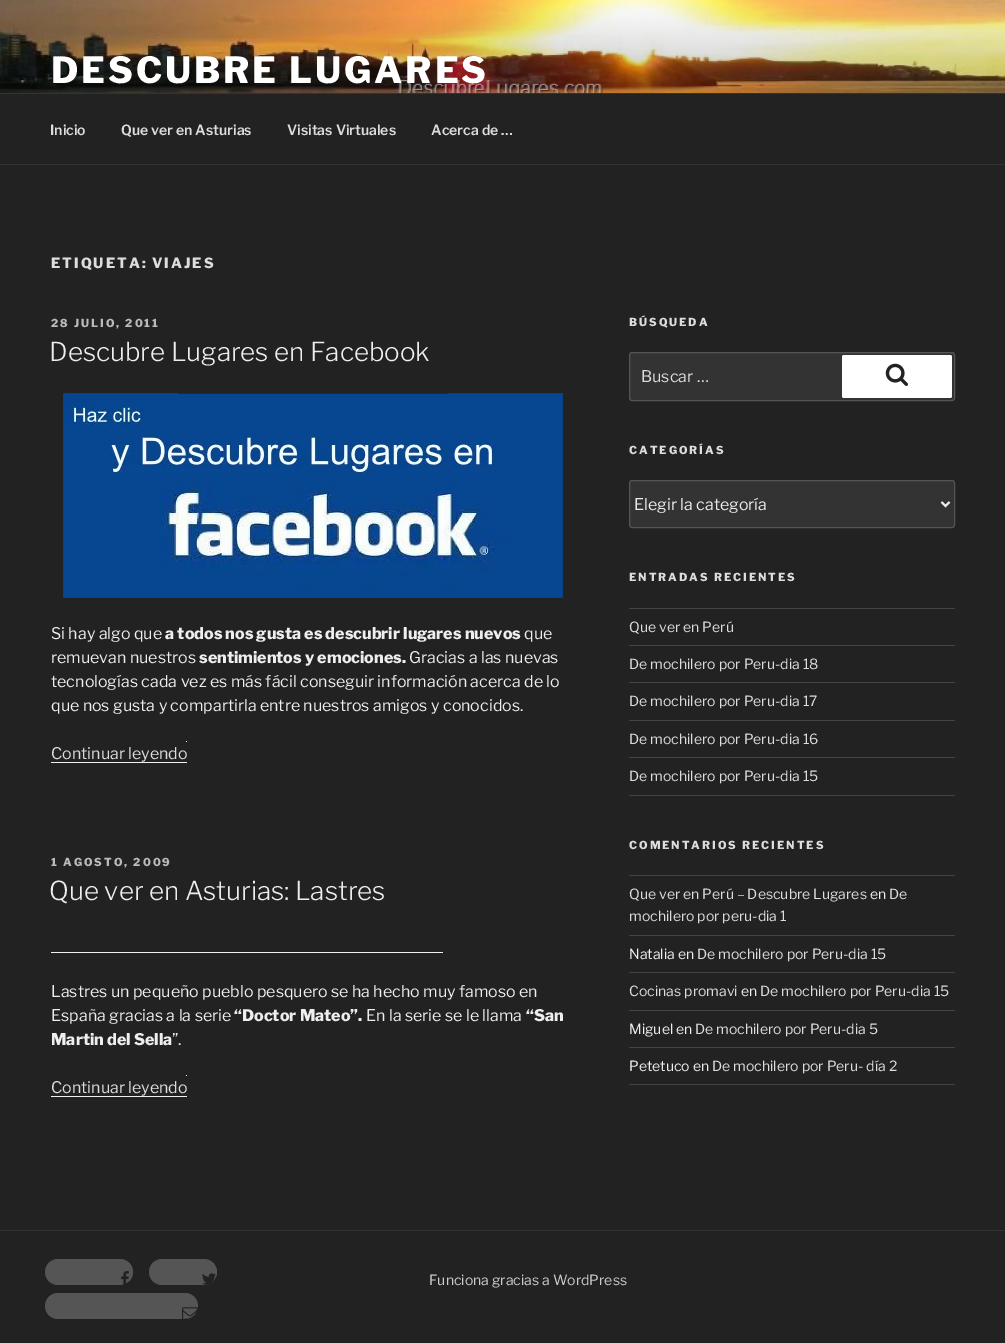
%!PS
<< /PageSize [1005 1343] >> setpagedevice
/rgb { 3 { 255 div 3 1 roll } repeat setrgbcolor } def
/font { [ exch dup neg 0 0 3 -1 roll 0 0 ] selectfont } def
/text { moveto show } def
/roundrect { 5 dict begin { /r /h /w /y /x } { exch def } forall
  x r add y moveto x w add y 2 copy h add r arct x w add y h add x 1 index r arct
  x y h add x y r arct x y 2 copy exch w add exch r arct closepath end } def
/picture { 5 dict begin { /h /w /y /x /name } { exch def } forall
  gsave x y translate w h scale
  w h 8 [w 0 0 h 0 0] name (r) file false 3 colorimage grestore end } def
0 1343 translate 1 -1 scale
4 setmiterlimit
34 34 34 rgb
0 0 1005 1343 rectfill
(img_01.rgb) 0 0 1005 93 picture
51 51 51 rgb
0 93 1005 1 rectfill
0 164 1005 1 rectfill
(img_02.rgb) 63 393 500 205 picture
240 240 240 rgb
51 762 136 1 rectfill
186 741 1 1 rectfill
51 952 392 1 rectfill
51 1096 136 1 rectfill
186 1075 1 1 rectfill
51 51 51 rgb
629.5 352.5 325 48 2.5 roundrect gsave fill grestore
85 85 85 rgb
stroke
255 255 255 rgb
842 355 110 43 2 roundrect fill
(img_03.rgb) 885 363 23 23 picture
51 51 51 rgb
629.5 480.5 325 47 2.5 roundrect gsave fill grestore
85 85 85 rgb
stroke
238 238 238 rgb
2 setlinewidth
941.5 502 moveto 4 4 rlineto 4 -4 rlineto stroke
68 68 68 rgb
629 608 326 1 rectfill
629 645 326 1 rectfill
629 682 326 1 rectfill
629 720 326 1 rectfill
629 757 326 1 rectfill
629 795 326 1 rectfill
629 875 326 1 rectfill
629 935 326 1 rectfill
629 972 326 1 rectfill
629 1010 326 1 rectfill
629 1047 326 1 rectfill
629 1084 326 1 rectfill
51 51 51 rgb
0 1230 1005 1 rectfill
85 85 85 rgb
45 1259 88 26 13 roundrect fill
(img_04.rgb) 121 1271 8 14 picture
149 1259 68 26 13 roundrect fill
(img_05.rgb) 202 1273 14 12 picture
45 1293 153 26 13 roundrect fill
(img_06.rgb) 182 1307 16 12 picture
/LibreFranklin-Thin 36 font
255 255 255 rgb
51 83 moveto 2.9 0 (DESCUBRE LUGARES) ashow
/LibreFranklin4-Thin 14 font
221 221 221 rgb
(Inicio) 50 135 text
(Que ver en Asturias) 121 135 text
(Visitas Virtuales) 287 135 text
(Acerca de …) 431 135 text
/LibreFranklin-Thin 14 font
51 268 moveto 2 0 (ETIQUETA: VIAJES) ashow
/LibreFranklin-Thin 11 font
187 187 187 rgb
51 327 moveto 2 0 (28 JULIO, 2011) ashow
/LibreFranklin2-Thin 26 font
238 238 238 rgb
(Descubre Lugares en Facebook) 49 361 text
/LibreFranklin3-Thin 16 font
(Si hay algo que) 51 639 text
/LibreFranklin-Thin 16 font
(a todos nos gusta es descubrir lugares nuevos) 165 639 text
/LibreFranklin3-Thin 16 font
(que) 524 639 text
(remuevan nuestros) 51 663 text
/LibreFranklin-Thin 16 font
(sentimientos y emociones.) 199 663 text
/LibreFranklin3-Thin 16 font
(Gracias a las nuevas) 409 663 text
(tecnologías cada vez es más fácil conseguir información acerca de lo) 51 687 text
(que nos gusta y compartirla entre nuestros amigos y conocidos.) 51 711 text
221 221 221 rgb
(Continuar leyendo) 51 759 text
/LibreFranklin-Thin 11 font
187 187 187 rgb
51 866 moveto 2 0 (1 AGOSTO, 2009) ashow
/LibreFranklin2-Thin 26 font
238 238 238 rgb
(Que ver en Asturias: Lastres) 49 900 text
/LibreFranklin3-Thin 16 font
(Lastres un pequeño pueblo pesquero se ha hecho muy famoso en) 51 997 text
(España gracias a la serie) 51 1021 text
/LibreFranklin-Thin 16 font
(“Doctor Mateo”.) 234 1021 text
/LibreFranklin3-Thin 16 font
(En la serie se le llama) 366 1021 text
/LibreFranklin-Thin 16 font
(“San) 526 1021 text
(Martin del Sella) 51 1045 text
/LibreFranklin3-Thin 16 font
(”.) 172 1045 text
221 221 221 rgb
(Continuar leyendo) 51 1093 text
/LibreFranklin-Thin 11 font
629 326 moveto 2 0 (BÚSQUEDA) ashow
/LibreFranklin3-Thin 16 font
(Buscar …) 641 382 text
/LibreFranklin-Thin 11 font
629 454 moveto 2 0 (CATEGORÍAS) ashow
/LibreFranklin3-Thin 16 font
238 238 238 rgb
(Elegir la categoría) 634 510 text
/LibreFranklin-Thin 11 font
221 221 221 rgb
629 581 moveto 2 0 (ENTRADAS RECIENTES) ashow
/LibreFranklin3-Thin 14 font
(Que ver en Perú) 629 632 text
(De mochilero por Peru-dia 18) 629 669 text
(De mochilero por Peru-dia 17) 629 706 text
(De mochilero por Peru-dia 16) 629 744 text
(De mochilero por Peru-dia 15) 629 781 text
/LibreFranklin-Thin 11 font
629 849 moveto 2 0 (COMENTARIOS RECIENTES) ashow
/LibreFranklin3-Thin 14 font
(Que ver en Perú – Descubre Lugares) 629 899 text
238 238 238 rgb
(en) 870 899 text
221 221 221 rgb
(De) 889 899 text
(mochilero por peru-dia 1) 629 921 text
238 238 238 rgb
(Natalia en) 629 959 text
221 221 221 rgb
(De mochilero por Peru-dia 15) 697 959 text
(Cocinas promavi) 629 996 text
238 238 238 rgb
(en) 741 996 text
221 221 221 rgb
(De mochilero por Peru-dia 15) 760 996 text
238 238 238 rgb
(Miguel en) 629 1034 text
221 221 221 rgb
(De mochilero por Peru-dia 5) 695 1034 text
238 238 238 rgb
(Petetuco en) 629 1071 text
221 221 221 rgb
(De mochilero por Peru- día 2) 712 1071 text
204 204 204 rgb
(Funciona gracias a WordPress) 429 1285 text
showpage
